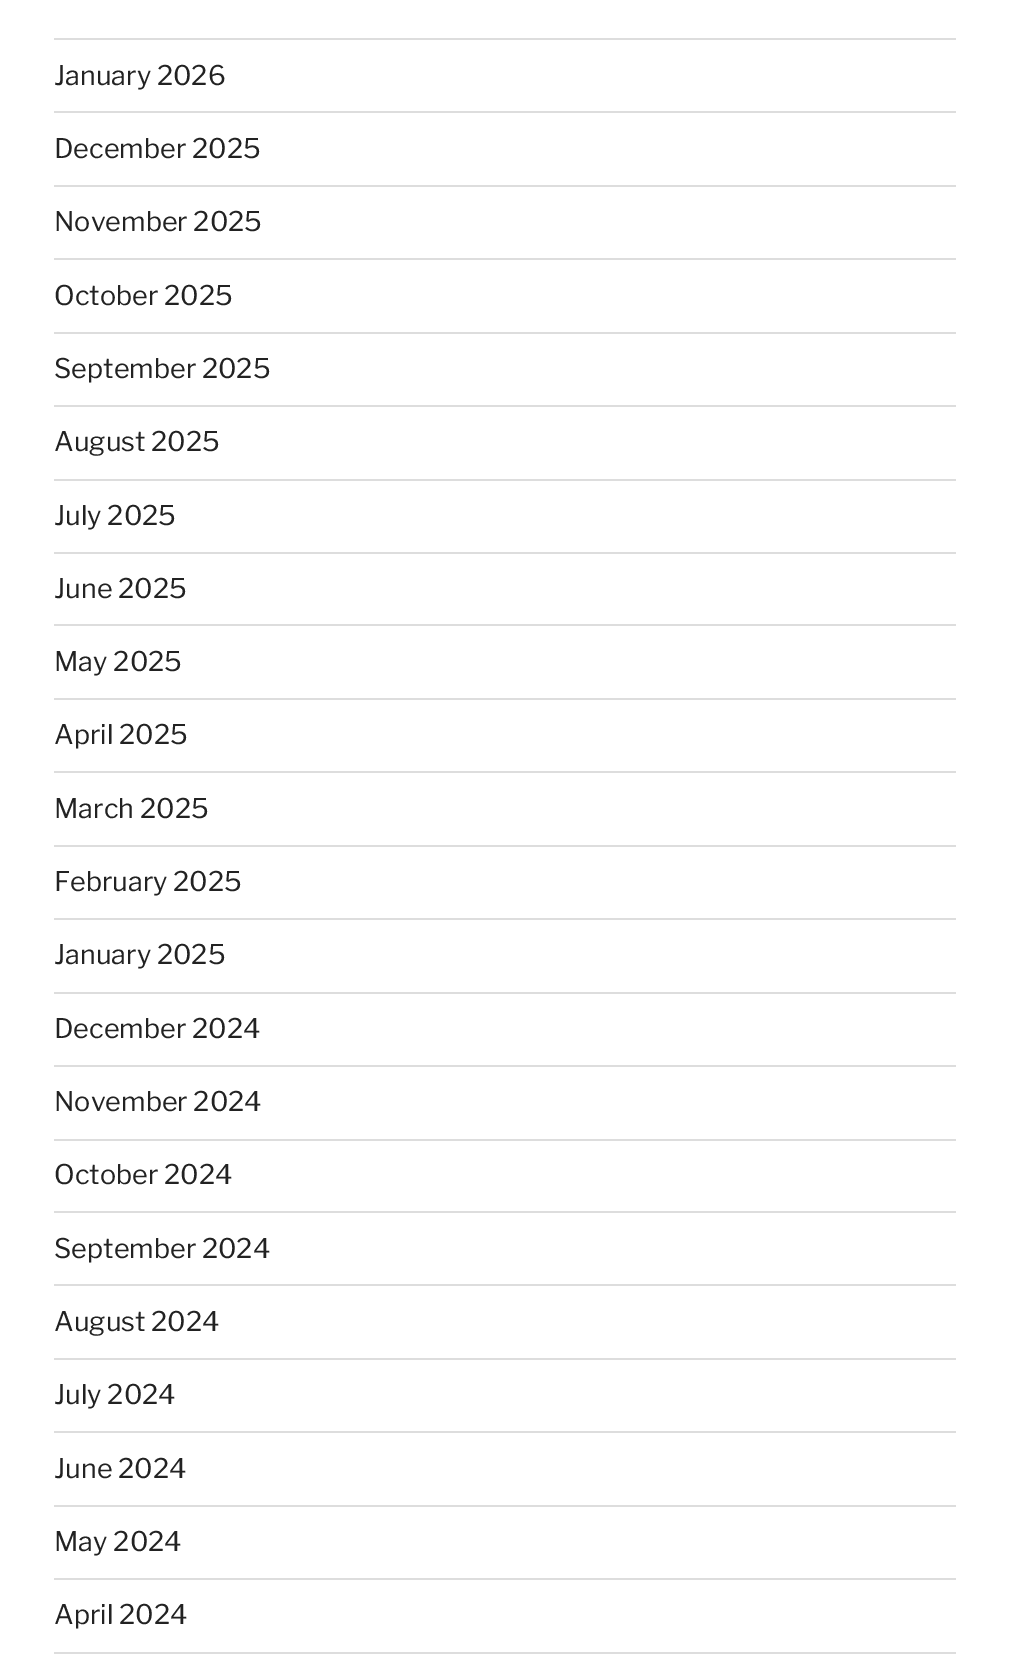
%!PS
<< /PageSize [1009 1657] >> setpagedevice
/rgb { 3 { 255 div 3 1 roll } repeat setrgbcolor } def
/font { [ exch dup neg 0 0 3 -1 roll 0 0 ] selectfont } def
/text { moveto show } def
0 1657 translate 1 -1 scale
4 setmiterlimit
255 255 255 rgb
0 0 1009 1657 rectfill
221 221 221 rgb
54 38 902 2 rectfill
54 111 902 2 rectfill
54 185 902 2 rectfill
54 258 902 2 rectfill
54 332 902 2 rectfill
54 405 902 2 rectfill
54 479 902 2 rectfill
54 552 902 2 rectfill
54 624 902 2 rectfill
54 698 902 2 rectfill
54 771 902 2 rectfill
54 845 902 2 rectfill
54 918 902 2 rectfill
54 992 902 2 rectfill
54 1065 902 2 rectfill
54 1139 902 2 rectfill
54 1211 902 2 rectfill
54 1284 902 2 rectfill
54 1358 902 2 rectfill
54 1431 902 2 rectfill
54 1505 902 2 rectfill
54 1578 902 2 rectfill
54 1652 902 2 rectfill
/LibreFranklin-Thin 27 font
34 34 34 rgb
(January 2026) 54 85 text
(December 2025) 54 158 text
(November 2025) 54 231 text
(October 2025) 54 305 text
(September 2025) 54 378 text
(August 2025) 54 451 text
(July 2025) 54 525 text
(June 2025) 54 598 text
(May 2025) 54 671 text
(April 2025) 54 744 text
(March 2025) 54 818 text
(February 2025) 54 891 text
(January 2025) 54 964 text
(December 2024) 54 1038 text
(November 2024) 54 1111 text
(October 2024) 54 1184 text
(September 2024) 54 1258 text
(August 2024) 54 1331 text
(July 2024) 54 1404 text
(June 2024) 54 1478 text
(May 2024) 54 1551 text
(April 2024) 54 1624 text
showpage
